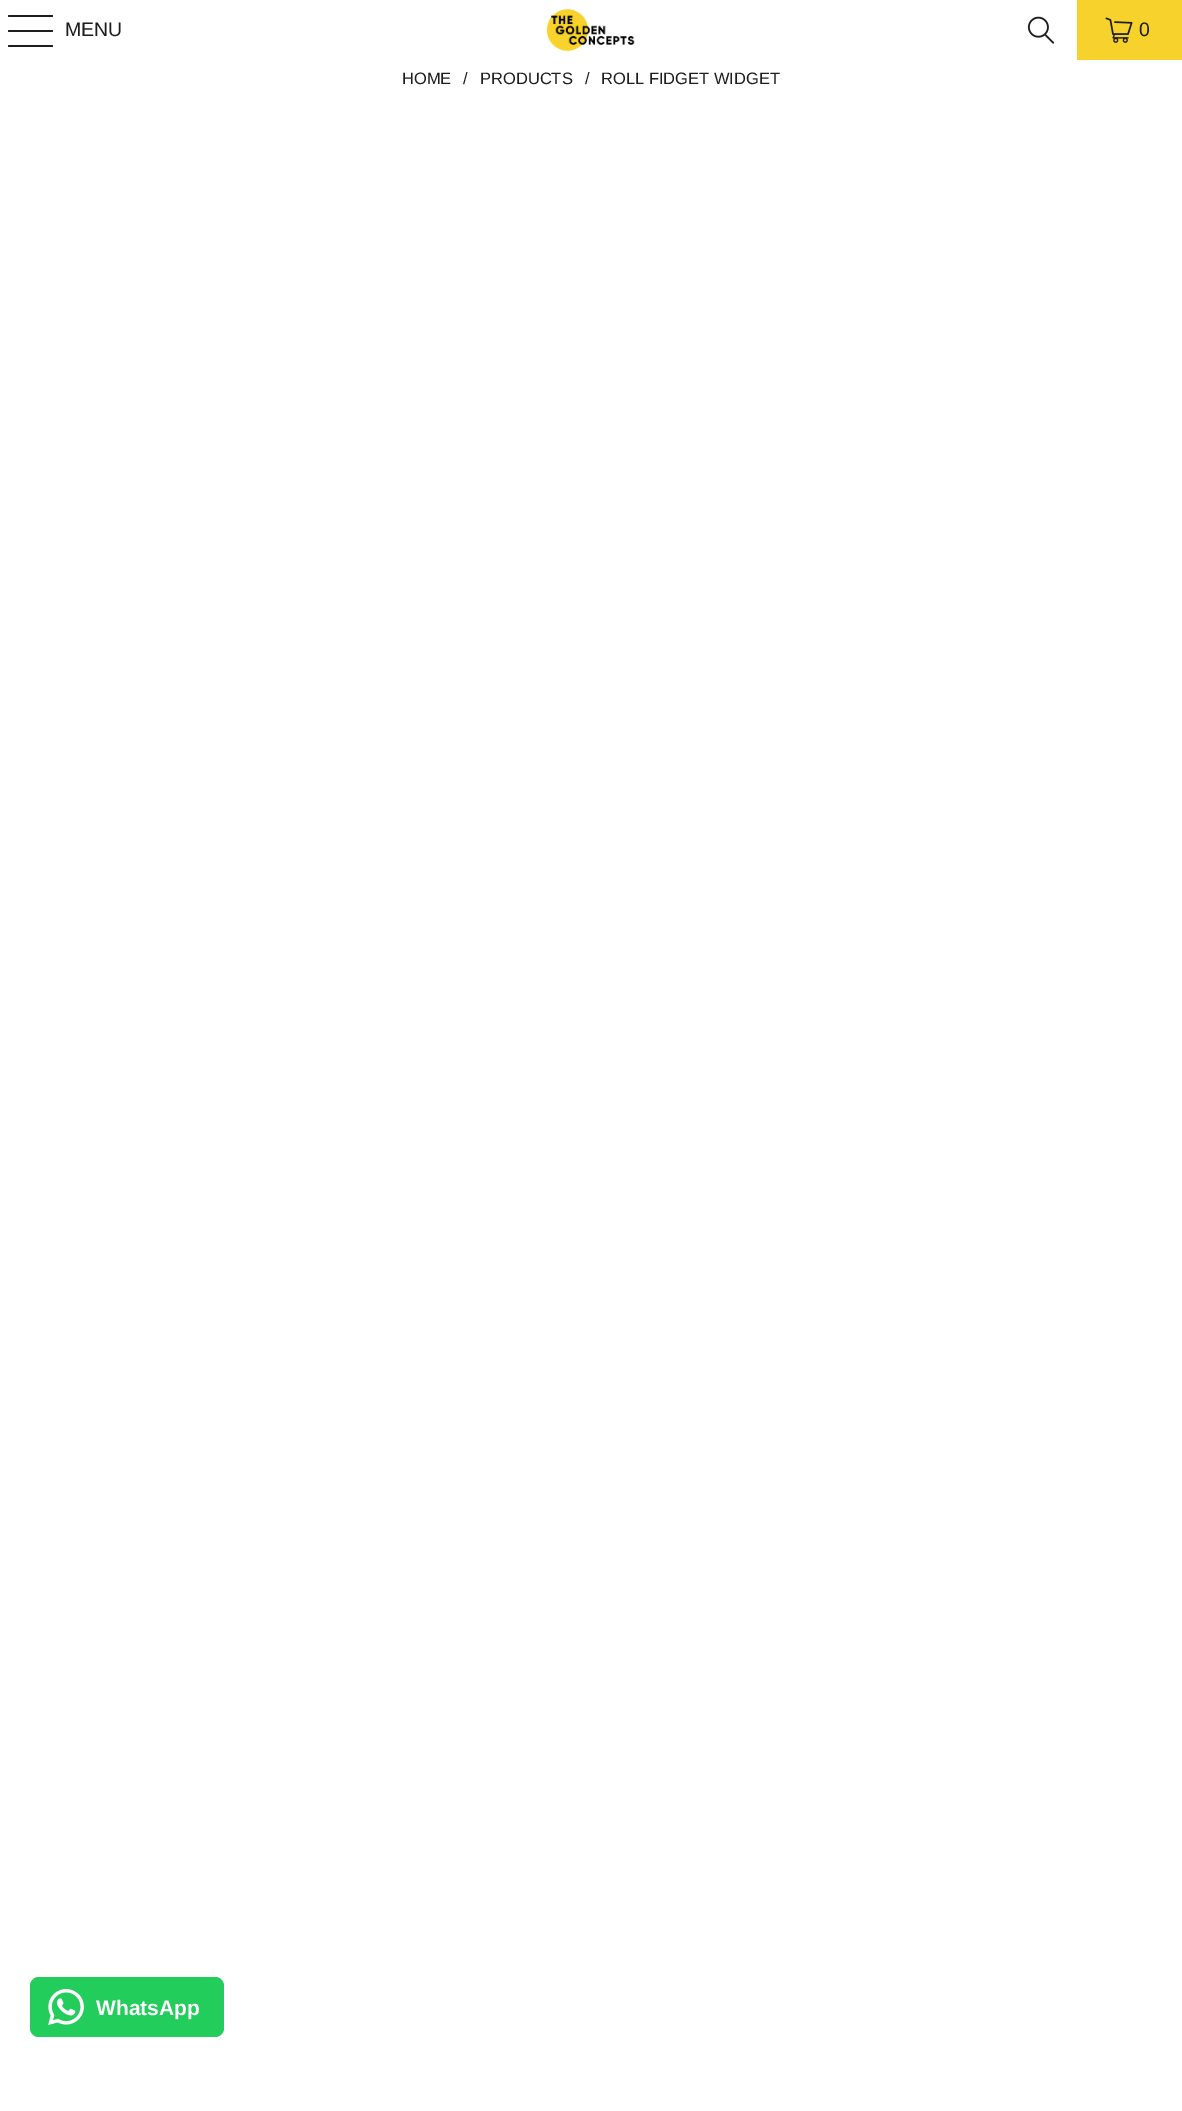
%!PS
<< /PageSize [1182 2111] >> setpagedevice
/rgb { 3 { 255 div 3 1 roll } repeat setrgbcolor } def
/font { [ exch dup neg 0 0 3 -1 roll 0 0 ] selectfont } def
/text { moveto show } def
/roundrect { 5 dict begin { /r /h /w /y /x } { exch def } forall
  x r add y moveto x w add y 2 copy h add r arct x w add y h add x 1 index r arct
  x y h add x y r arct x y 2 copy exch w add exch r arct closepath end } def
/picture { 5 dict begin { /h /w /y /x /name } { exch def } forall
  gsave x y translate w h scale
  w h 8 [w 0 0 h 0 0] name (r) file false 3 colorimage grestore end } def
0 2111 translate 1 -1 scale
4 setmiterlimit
255 255 255 rgb
0 0 1182 2111 rectfill
30 30 30 rgb
8 15 45 2 1 roundrect fill
8 30 45 2 1 roundrect fill
8 45 45 2 1 roundrect fill
(img_01.rgb) 546 8 89 44 picture
(img_02.rgb) 1027 16 28 28 picture
248 210 44 rgb
1077 0 105 60 rectfill
(img_03.rgb) 1105 17 28 26 picture
34 205 91 rgb
30 1977 194 60 9 roundrect fill
(img_04.rgb) 48 1989 36 36 picture
/LiberationSans-Regular 19.5 font
30 30 30 rgb
(MENU) 65 36 text
(0) 1139 36 text
/LiberationSans-Regular 16.5 font
(HOME) 402 84 text
(/) 463 84 text
(PRODUCTS) 480 84 text
(/) 585 84 text
(ROLL FIDGET WIDGET) 601 84 text
/LiberationSans-Bold 21 font
255 255 255 rgb
(WhatsApp) 96 2015 text
showpage
